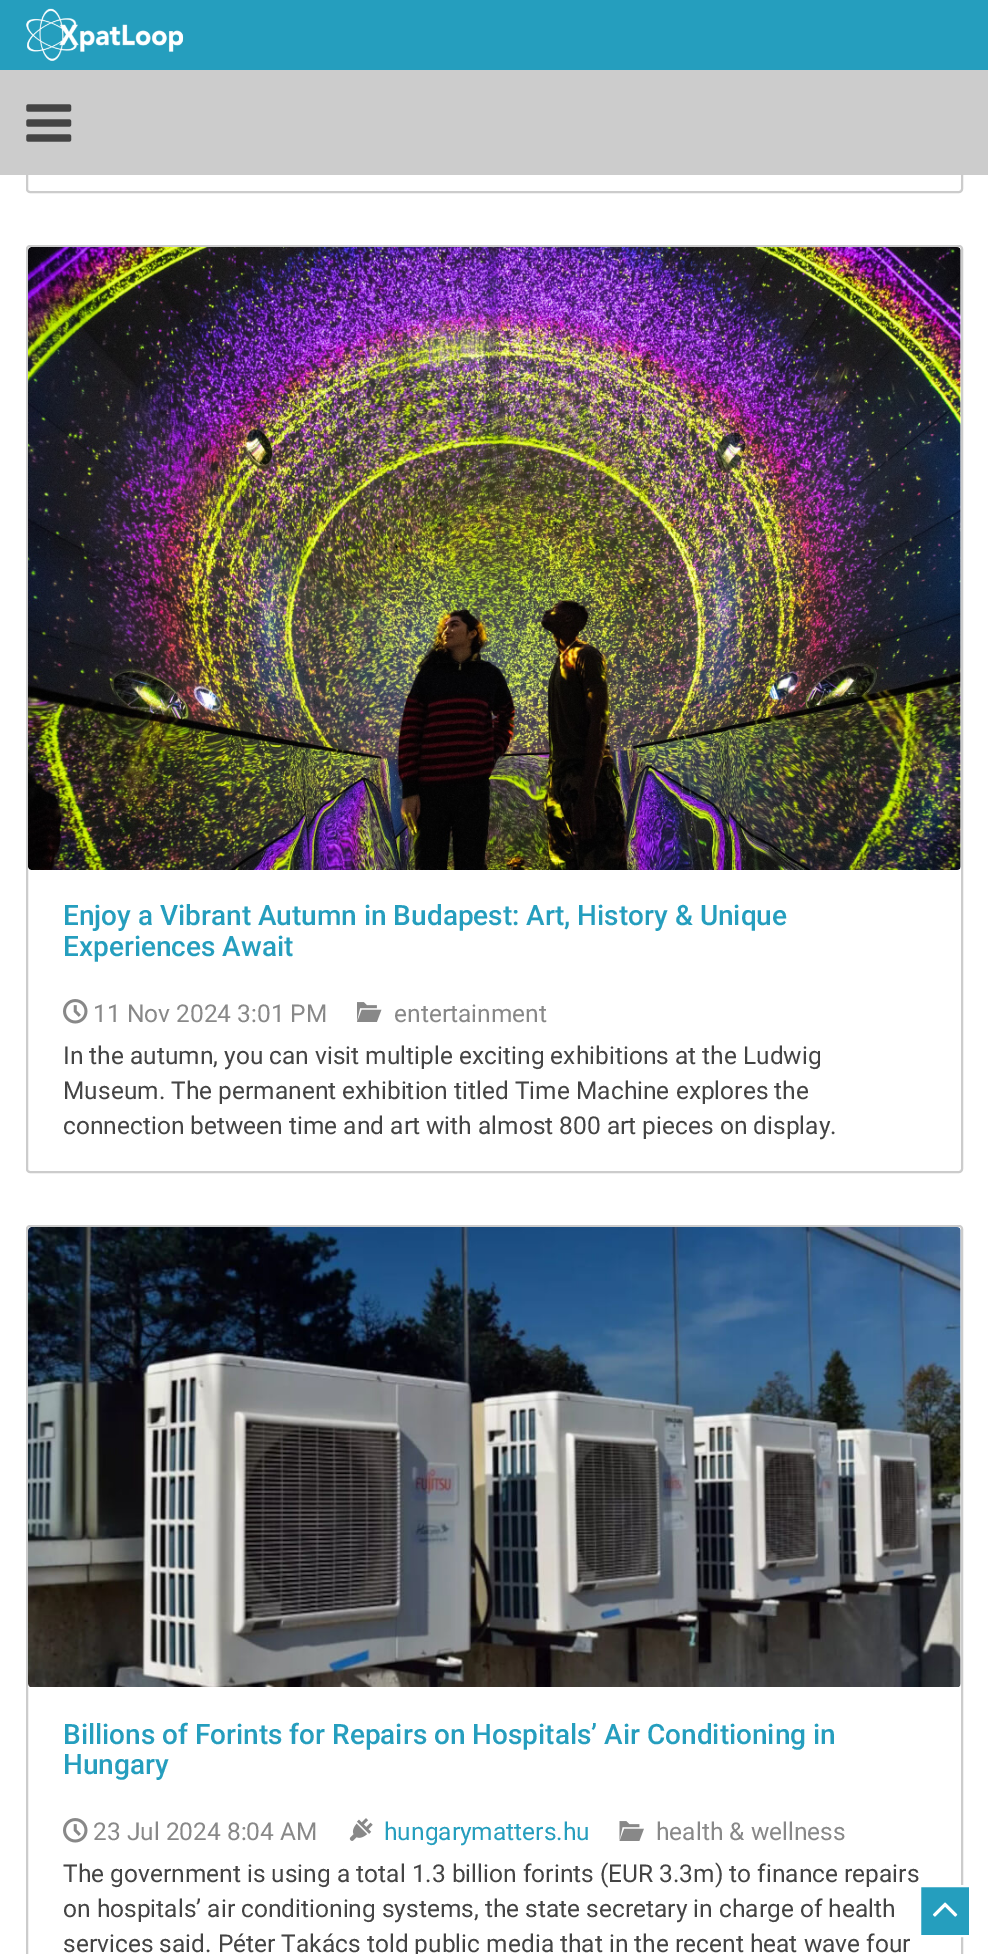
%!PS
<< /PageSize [988 1954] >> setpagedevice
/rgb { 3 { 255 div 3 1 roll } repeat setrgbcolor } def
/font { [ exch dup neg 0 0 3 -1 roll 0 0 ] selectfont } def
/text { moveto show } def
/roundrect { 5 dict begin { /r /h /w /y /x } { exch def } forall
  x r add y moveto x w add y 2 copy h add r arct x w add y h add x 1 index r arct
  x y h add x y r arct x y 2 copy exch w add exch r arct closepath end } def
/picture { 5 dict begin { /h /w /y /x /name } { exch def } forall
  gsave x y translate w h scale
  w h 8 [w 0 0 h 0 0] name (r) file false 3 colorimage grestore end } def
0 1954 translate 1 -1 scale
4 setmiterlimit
255 255 255 rgb
0 0 988 1954 rectfill
204 204 204 rgb
2 setlinewidth
27 -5 935 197 3 roundrect stroke
37 158 190 rgb
0 0 988 70 rectfill
(img_01.rgb) 26 8 158 53 picture
204 204 204 rgb
0 70 988 105 rectfill
(img_02.rgb) 26 104 46 38 picture
27 246 935 926 3 roundrect stroke
(img_03.rgb) 28 247 933 623 picture
(img_04.rgb) 63 999 25 25 picture
(img_05.rgb) 357 1002 25 20 picture
27 1226 935 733 3 roundrect stroke
(img_06.rgb) 28 1227 933 460 picture
(img_04.rgb) 63 1818 25 25 picture
(img_07.rgb) 349 1818 24 23 picture
(img_08.rgb) 619 1821 25 20 picture
37 158 190 rgb
920 1886 moveto 50 0 rlineto 0 50 rlineto -50 0 rlineto closepath gsave fill grestore
255 255 255 rgb
stroke
(img_09.rgb) 932 1902 26 15 picture
/Roboto-Medium 28 font
37 158 190 rgb
(Enjoy a Vibrant Autumn in Budapest: Art, History & Unique) 63 925 text
(Experiences Await) 63 956 text
/Roboto-Regular 24.5 font
136 136 136 rgb
(11 Nov 2024 3:01 PM) 93 1022 text
(entertainment) 394 1022 text
68 68 68 rgb
(In the autumn, you can visit multiple exciting exhibitions at the Ludwig) 63 1064 text
(Museum. The permanent exhibition titled Time Machine explores the) 63 1099 text
(connection between time and art with almost 800 art pieces on display.) 63 1134 text
/Roboto-Medium 28 font
37 158 190 rgb
(Billions of Forints for Repairs on Hospitals’ Air Conditioning in) 63 1744 text
(Hungary) 63 1774 text
/Roboto-Regular 24.5 font
136 136 136 rgb
(23 Jul 2024 8:04 AM) 93 1840 text
37 158 190 rgb
(hungarymatters.hu) 384 1840 text
136 136 136 rgb
(health & wellness) 656 1840 text
68 68 68 rgb
(The government is using a total 1.3 billion forints \(EUR 3.3m\) to finance repairs) 63 1882 text
(on hospitals’ air conditioning systems, the state secretary in charge of health) 63 1917 text
(services said. Péter Takács told public media that in the recent heat wave four) 63 1952 text
showpage
